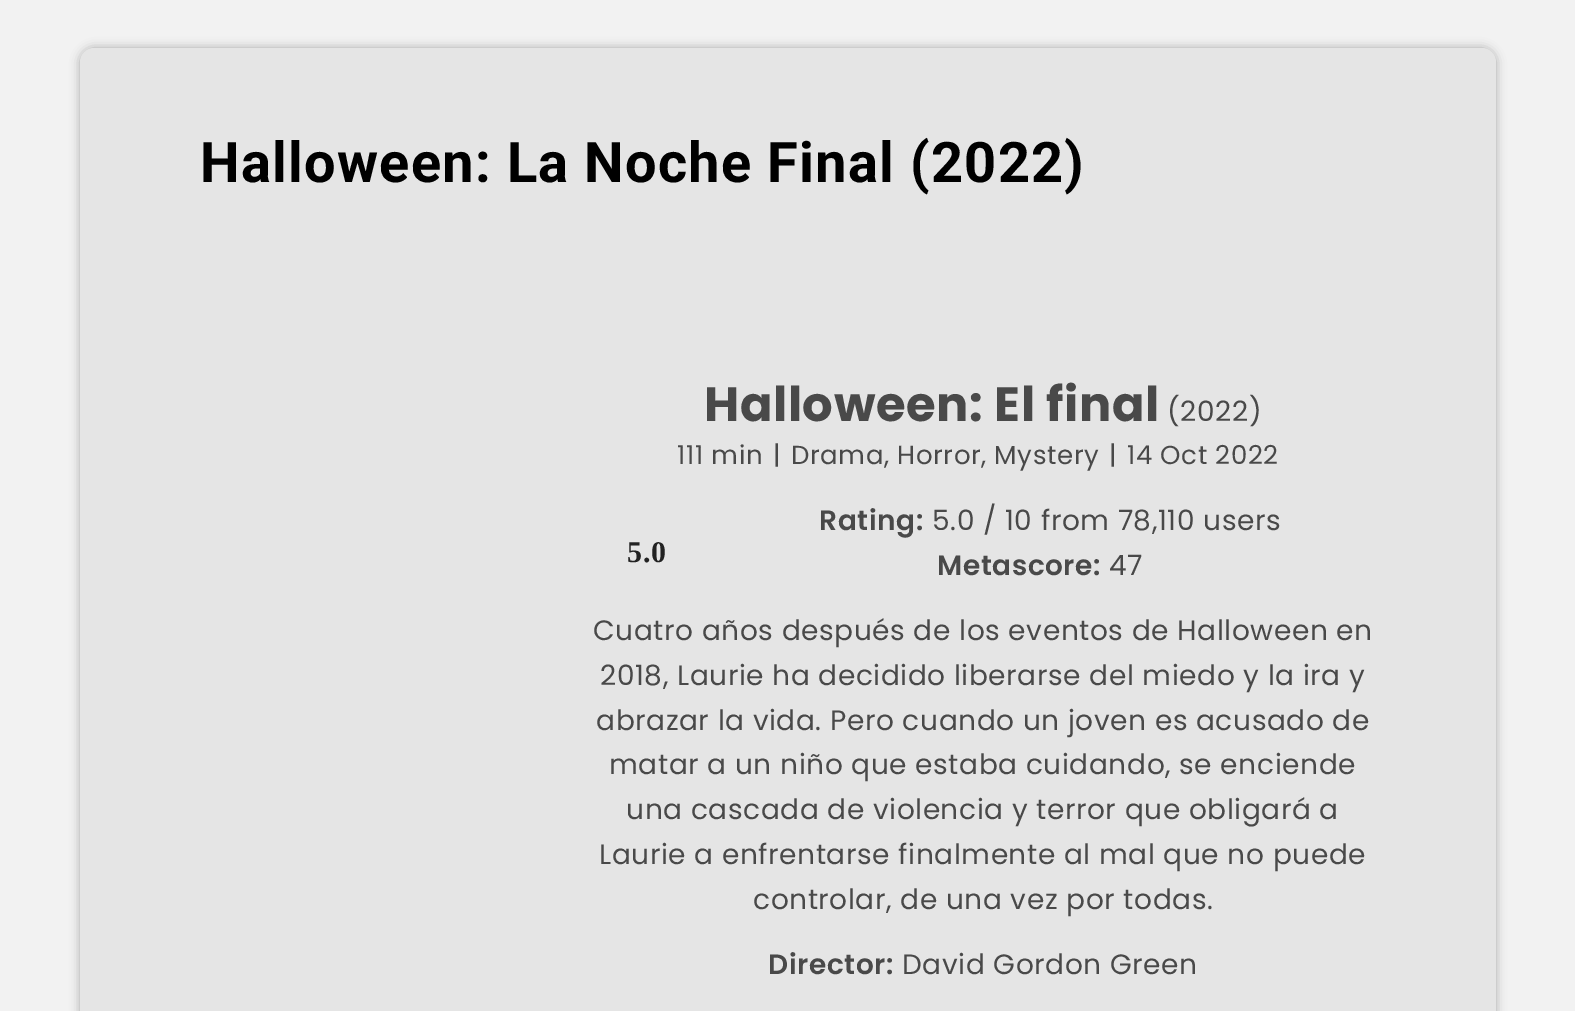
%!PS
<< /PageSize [1575 1011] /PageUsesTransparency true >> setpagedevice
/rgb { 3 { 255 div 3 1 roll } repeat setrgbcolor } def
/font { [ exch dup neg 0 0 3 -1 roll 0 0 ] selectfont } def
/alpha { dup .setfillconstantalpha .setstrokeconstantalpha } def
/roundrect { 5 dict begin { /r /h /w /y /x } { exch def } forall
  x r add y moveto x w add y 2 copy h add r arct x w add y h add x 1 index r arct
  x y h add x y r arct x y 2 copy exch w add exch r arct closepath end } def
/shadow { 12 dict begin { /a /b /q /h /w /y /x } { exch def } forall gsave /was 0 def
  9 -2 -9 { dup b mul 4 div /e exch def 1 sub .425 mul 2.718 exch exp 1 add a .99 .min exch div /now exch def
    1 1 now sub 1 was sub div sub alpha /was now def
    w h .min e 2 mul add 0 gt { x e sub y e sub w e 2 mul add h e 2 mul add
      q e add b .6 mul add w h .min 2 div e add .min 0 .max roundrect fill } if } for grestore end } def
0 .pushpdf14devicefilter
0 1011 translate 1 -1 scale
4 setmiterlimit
242 242 242 rgb
0 0 1575 1011 rectfill
0 0 0 rgb
80 48 1416 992 14 5 0.3 shadow
229 229 229 rgb
94 48 moveto 1388 0 rlineto 7.5 0 14 6.5 14 14 rcurveto 0 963 rlineto -1416 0 rlineto 0 -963 rlineto 0 -7.5 6.5 -14 14 -14 rcurveto closepath fill
/Roboto-Bold 56 font
0 0 0 rgb
200 182 moveto 1.2 0 (Halloween: La Noche Final \(2022\)) ashow
/Poppins-Bold 48 font
73 73 73 rgb
704 421 moveto 0.6 0 (Halloween: El final) ashow
/Poppins-Regular 28 font
1167 421 moveto 0.6 0 (\(2022\)) ashow
/Poppins-Regular 26 font
677 464 moveto 0.6 0 (111 min) ashow
773 464 moveto 0.6 0 (|) ashow
791 464 moveto 0.6 0 (Drama, Horror, Mystery) ashow
1109 464 moveto 0.6 0 (|) ashow
1127 464 moveto 0.6 0 (14 Oct 2022) ashow
/Poppins-SemiBold 28 font
819 530 moveto 0.6 0 (Rating:) ashow
/Poppins-Regular 28 font
932 530 moveto 0.6 0 (5.0 / 10 from 78,110 users) ashow
/LiberationSerif-Bold 30 font
34 34 34 rgb
627 562 moveto 0.6 0 (5.0) ashow
/Poppins-SemiBold 28 font
73 73 73 rgb
937 575 moveto 0.6 0 (Metascore:) ashow
/Poppins-Regular 28 font
1109 575 moveto 0.6 0 (47) ashow
593 640 moveto 0.6 0 (Cuatro años después de los eventos de Halloween en) ashow
600 685 moveto 0.6 0 (2018, Laurie ha decidido liberarse del miedo y la ira y) ashow
596 730 moveto 0.6 0 (abrazar la vida. Pero cuando un joven es acusado de) ashow
609 774 moveto 0.6 0 (matar a un niño que estaba cuidando, se enciende) ashow
626 819 moveto 0.6 0 (una cascada de violencia y terror que obligará a) ashow
599 864 moveto 0.6 0 (Laurie a enfrentarse finalmente al mal que no puede) ashow
753 909 moveto 0.6 0 (controlar, de una vez por todas.) ashow
/Poppins-SemiBold 28 font
768 974 moveto 0.6 0 (Director:) ashow
/Poppins-Regular 28 font
902 974 moveto 0.6 0 (David Gordon Green) ashow
.poppdf14devicefilter showpage
